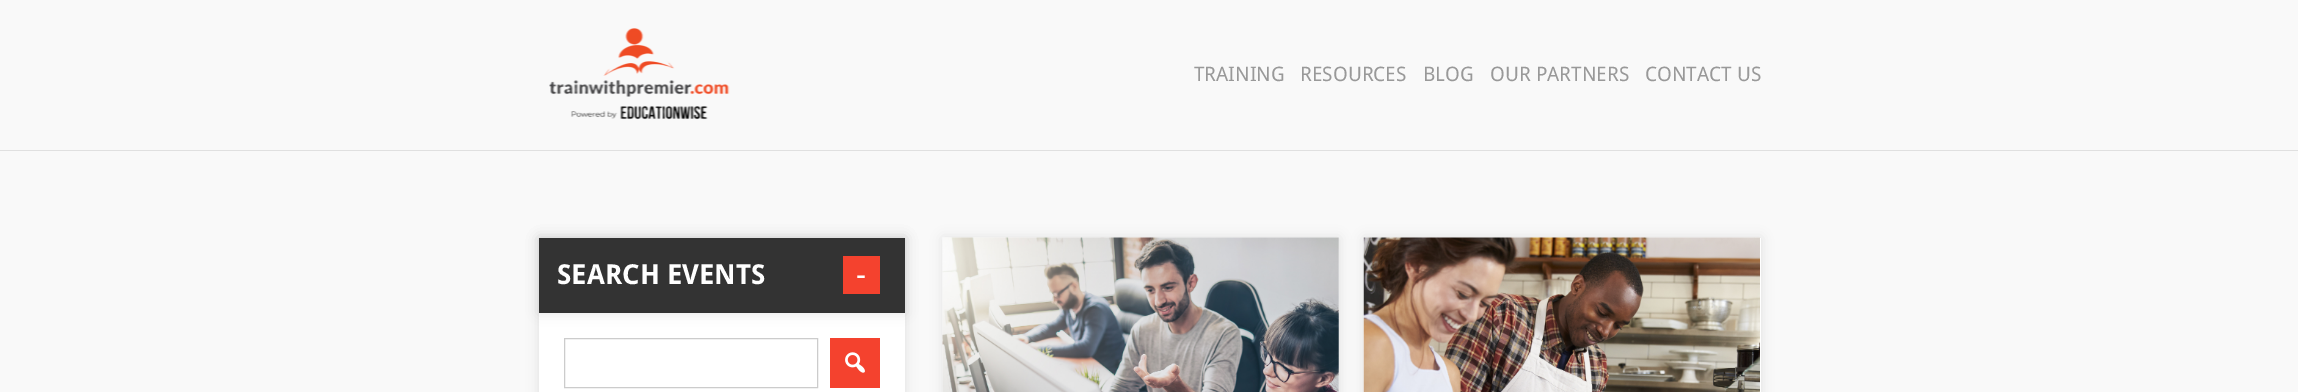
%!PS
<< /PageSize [2298 392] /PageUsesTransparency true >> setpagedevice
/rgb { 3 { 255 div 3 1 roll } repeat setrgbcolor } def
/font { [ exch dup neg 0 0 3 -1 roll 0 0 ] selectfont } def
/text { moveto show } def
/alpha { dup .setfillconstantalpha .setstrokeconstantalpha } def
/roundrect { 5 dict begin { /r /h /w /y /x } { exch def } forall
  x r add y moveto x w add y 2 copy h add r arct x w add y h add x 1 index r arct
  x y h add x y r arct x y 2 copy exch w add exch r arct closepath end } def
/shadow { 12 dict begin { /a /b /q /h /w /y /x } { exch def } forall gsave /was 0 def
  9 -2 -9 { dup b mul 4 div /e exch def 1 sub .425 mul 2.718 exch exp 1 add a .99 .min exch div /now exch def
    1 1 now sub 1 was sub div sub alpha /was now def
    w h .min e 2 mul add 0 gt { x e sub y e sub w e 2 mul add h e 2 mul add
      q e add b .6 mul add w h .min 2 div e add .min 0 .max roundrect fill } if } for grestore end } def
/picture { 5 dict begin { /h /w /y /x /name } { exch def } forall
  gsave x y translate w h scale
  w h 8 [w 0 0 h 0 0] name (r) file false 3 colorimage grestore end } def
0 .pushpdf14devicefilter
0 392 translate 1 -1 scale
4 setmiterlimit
249 249 249 rgb
0 0 2298 392 rectfill
224 224 224 rgb
0 150 2298 1 rectfill
(img_01.rgb) 549 28 181 92 picture
0 0 0 rgb
539 238 366 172 0 6 0.1 shadow
255 255 255 rgb
539 313 366 79 rectfill
0 0 0 rgb
539 238 366 75 0 6 0.1 shadow
51 51 51 rgb
539 238 366 75 rectfill
244 66 46 rgb
843 256 37 38 rectfill
204 204 204 rgb
564.5 338.5 253 49 rectstroke
244 66 46 rgb
830 338 50 50 rectfill
(img_02.rgb) 845 352 20 21 picture
0 0 0 rgb
943 238 396 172 0 6 0.1 shadow
(img_03.rgb) 942 237 397 155 picture
1364 238 397 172 0 6 0.1 shadow
255 255 255 rgb
1760 238 1 154 rectfill
(img_04.rgb) 1363 237 397 155 picture
/DroidSans-Regular 20 font
153 153 153 rgb
(TRAINING) 1194 81 text
(RESOURCES) 1300 81 text
(BLOG) 1423 81 text
(OUR PARTNERS) 1490 81 text
(CONTACT US) 1645 81 text
/DroidSans-Bold 27.5 font
255 255 255 rgb
(SEARCH EVENTS) 557 284 text
/DroidSans-Regular 31 font
(-) 856 285 text
.poppdf14devicefilter showpage
